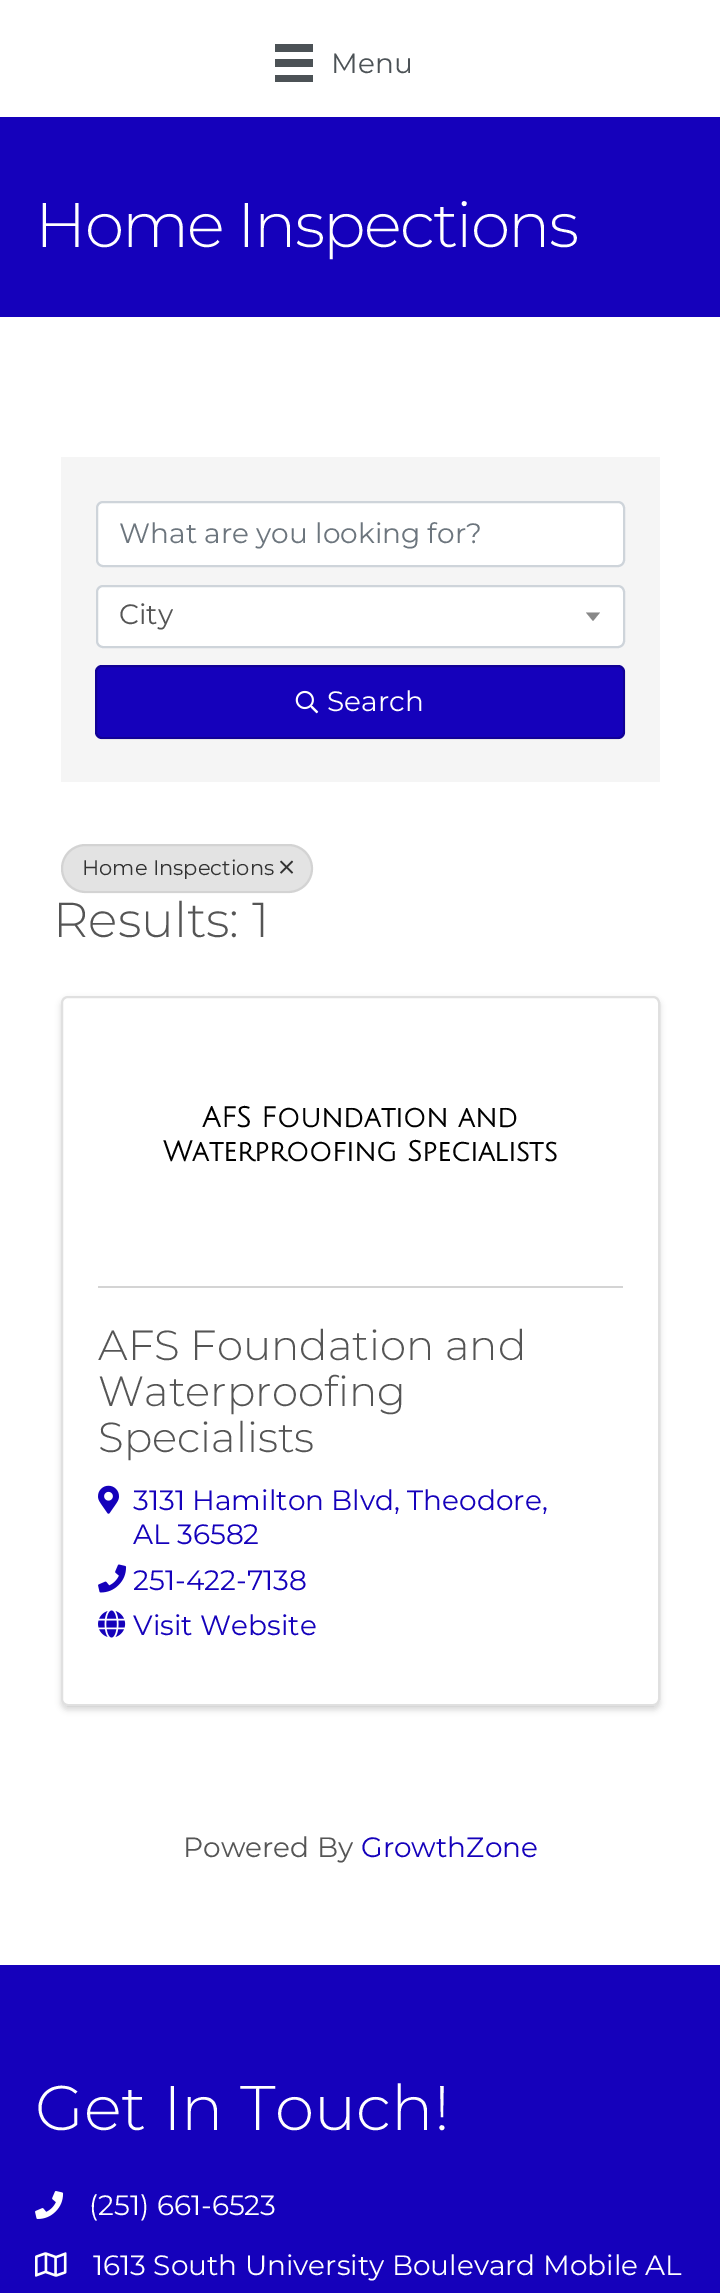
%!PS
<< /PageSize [720 2293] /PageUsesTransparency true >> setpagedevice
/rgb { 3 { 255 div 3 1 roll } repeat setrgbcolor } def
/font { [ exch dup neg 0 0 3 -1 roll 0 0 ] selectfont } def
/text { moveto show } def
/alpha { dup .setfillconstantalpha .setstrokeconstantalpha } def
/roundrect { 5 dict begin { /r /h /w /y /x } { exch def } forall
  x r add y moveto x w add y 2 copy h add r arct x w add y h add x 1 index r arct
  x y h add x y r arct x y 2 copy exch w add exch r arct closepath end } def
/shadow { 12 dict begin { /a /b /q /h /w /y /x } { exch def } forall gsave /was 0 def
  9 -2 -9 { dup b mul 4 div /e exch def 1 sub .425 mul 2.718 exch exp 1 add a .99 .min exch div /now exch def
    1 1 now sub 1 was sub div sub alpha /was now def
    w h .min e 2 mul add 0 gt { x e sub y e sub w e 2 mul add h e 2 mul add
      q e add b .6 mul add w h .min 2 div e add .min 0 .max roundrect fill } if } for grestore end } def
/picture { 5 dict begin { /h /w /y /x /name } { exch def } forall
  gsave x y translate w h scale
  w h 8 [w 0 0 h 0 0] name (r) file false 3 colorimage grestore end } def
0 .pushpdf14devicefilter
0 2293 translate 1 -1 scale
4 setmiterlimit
255 255 255 rgb
0 0 720 2293 rectfill
76 82 86 rgb
275 44 38 8 rectfill
275 59 38 8 rectfill
275 75 38 7 rectfill
21 1 187 rgb
0 117 720 200 rectfill
245 245 245 rgb
61 457 599 325 rectfill
255 255 255 rgb
97 502 527 64 6 roundrect gsave fill grestore
206 212 218 rgb
2 setlinewidth
stroke
255 255 255 rgb
97 586 527 61 6 roundrect gsave fill grestore
206 212 218 rgb
stroke
136 136 136 rgb
586 612.5 moveto 14 0 rlineto -7 8.5 rlineto closepath fill
21 1 187 rgb
95 665 530 74 7 roundrect fill
0.2 alpha
0 0 0 rgb
96 666 528 72 6 roundrect stroke
1 alpha
(img_01.rgb) 295 690 24 24 picture
227 227 227 rgb
61 844 252 49 24.5 roundrect fill
0.07 alpha
0 0 0 rgb
62 845 250 47 23.5 roundrect stroke
1 alpha
(img_02.rgb) 280 860 14 14 picture
61 999 599 711 7 3 0.15 shadow
255 255 255 rgb
61 996 599 710 7 roundrect fill
0.12 alpha
0 0 0 rgb
62 997 597 708 6 roundrect stroke
1 alpha
212 212 212 rgb
98 1286 525 2 rectfill
(img_03.rgb) 98 1485 21 29 picture
(img_04.rgb) 98 1564 29 29 picture
(img_05.rgb) 98 1610 28 28 picture
21 1 187 rgb
0 1965 720 328 rectfill
(img_06.rgb) 35 2191 29 28 picture
(img_07.rgb) 35 2252 32 25 picture
/Montserrat-Regular 28 font
76 82 86 rgb
(Menu) 331 73 text
/Montserrat-Light 63 font
255 255 255 rgb
35 247 moveto -1.75 0 (Home Inspections) ashow
/Montserrat-Regular 28 font
108 117 125 rgb
(What are you looking for?) 119 543 text
85 85 85 rgb
(City) 119 624 text
255 255 255 rgb
(Search) 327 711 text
/Montserrat-Regular 21 font
51 51 51 rgb
(Home Inspections) 82 875 text
/Montserrat-Light 49 font
85 85 85 rgb
(Results: 1) 53 937 text
/JuliusSansOne-Bold 28 font
0 0 0 rgb
(AFS Foundation and) 202 1127 text
(Waterproofing Specialists) 163 1161 text
/Montserrat-Light 42 font
85 85 85 rgb
(AFS Foundation and) 98 1360 text
(Waterproofing) 98 1406 text
(Specialists) 98 1452 text
/Montserrat-Regular 28 font
21 1 187 rgb
(3131 Hamilton Blvd, Theodore,) 133 1510 text
(AL 36582) 133 1544 text
(251-422-7138) 133 1590 text
(Visit Website) 133 1635 text
85 85 85 rgb
(Powered By) 183 1857 text
21 1 187 rgb
(GrowthZone) 361 1857 text
/Montserrat-Light 63 font
255 255 255 rgb
(Get In Touch!) 35 2130 text
/Montserrat-Regular 28 font
(\(251\) 661-6523) 89 2215 text
(1613 South University Boulevard Mobile AL) 93 2275 text
.poppdf14devicefilter showpage
